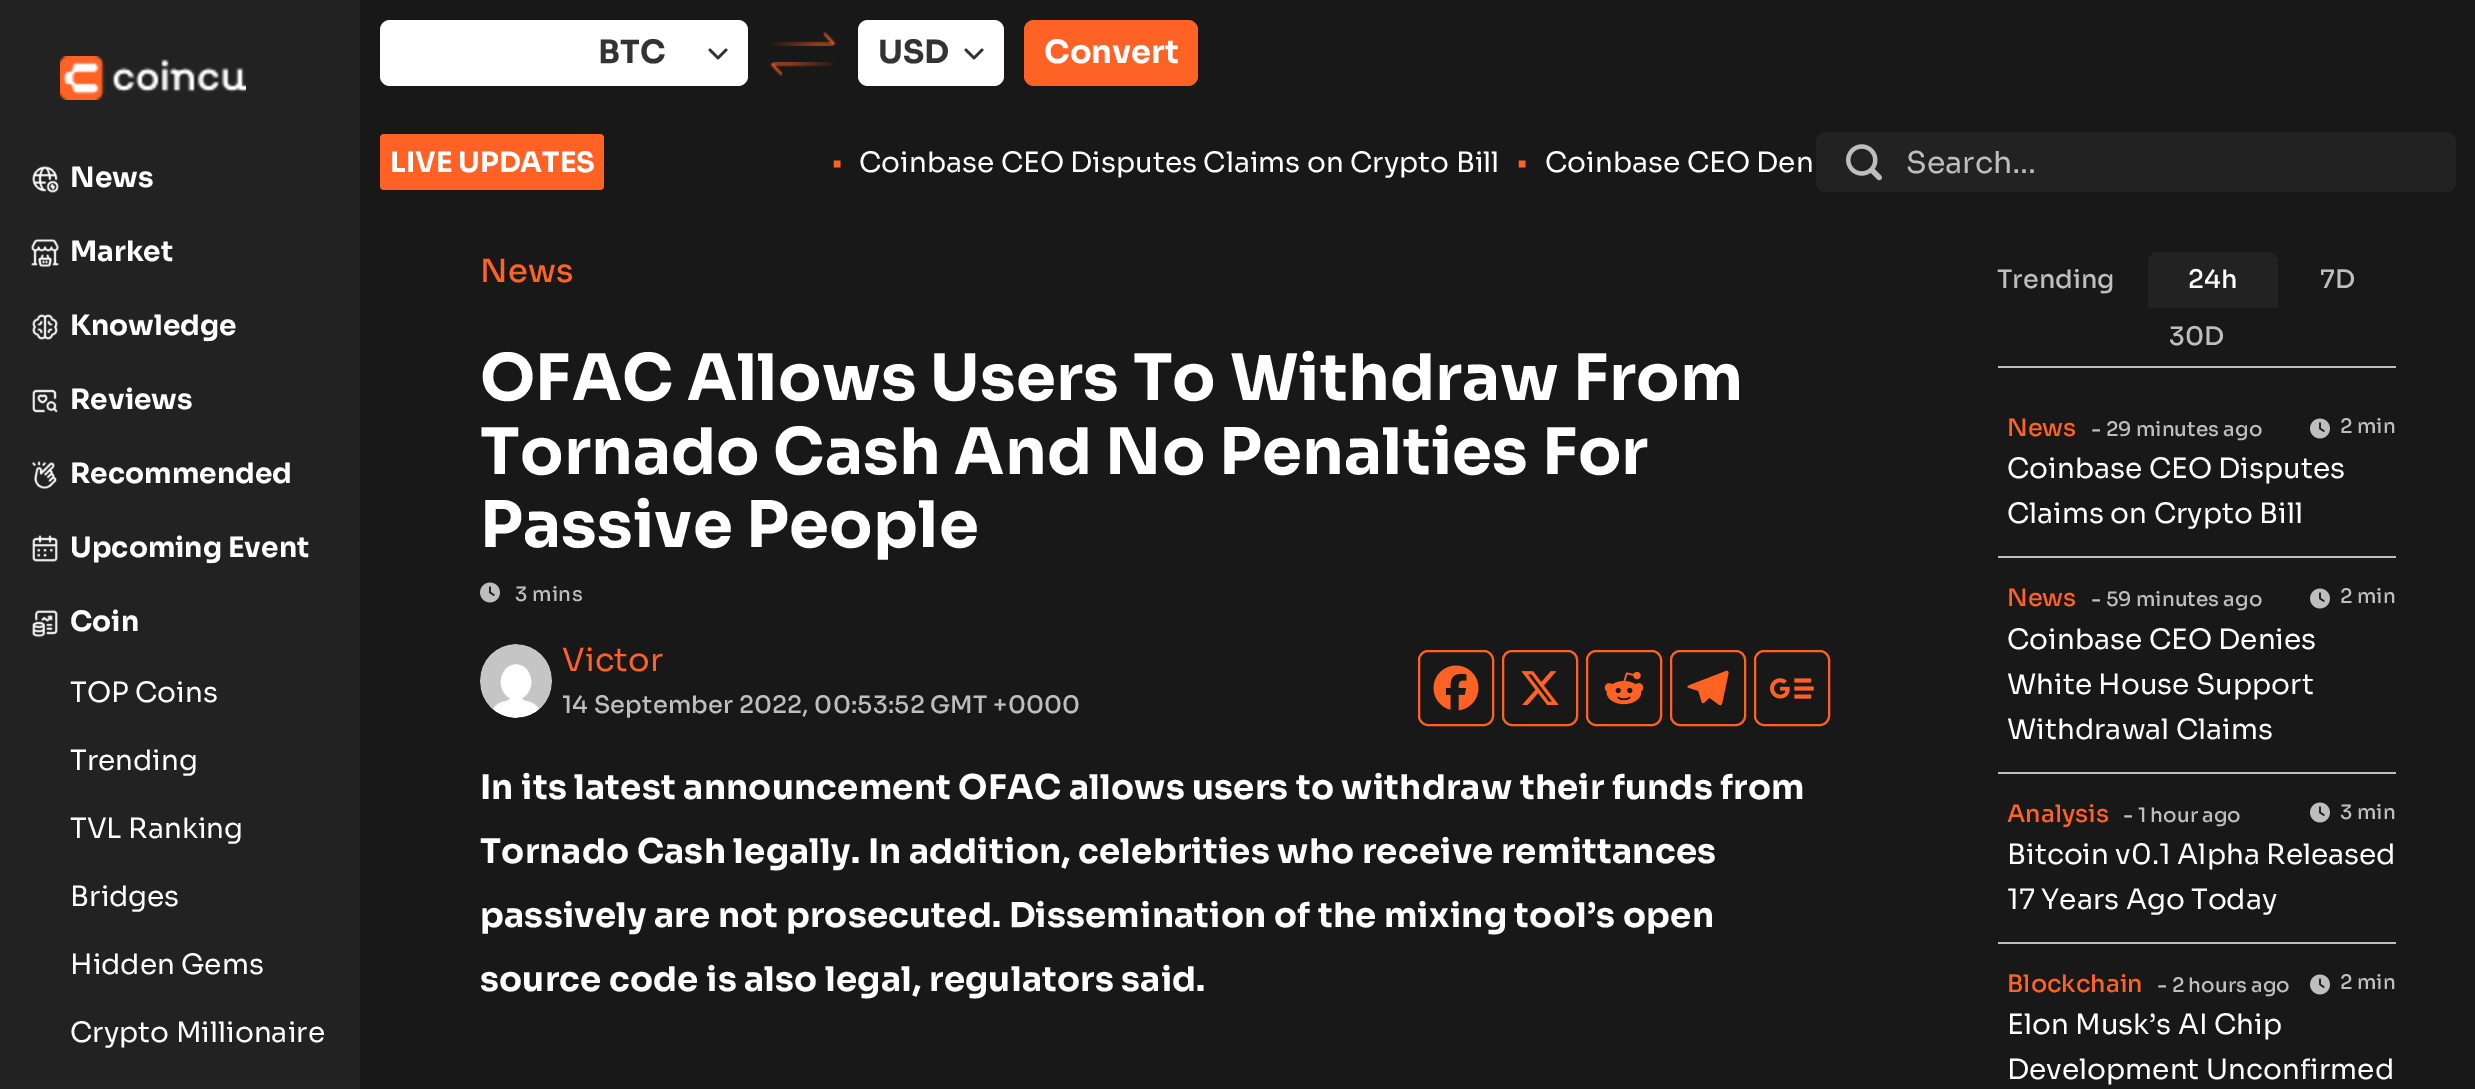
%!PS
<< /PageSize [2475 1089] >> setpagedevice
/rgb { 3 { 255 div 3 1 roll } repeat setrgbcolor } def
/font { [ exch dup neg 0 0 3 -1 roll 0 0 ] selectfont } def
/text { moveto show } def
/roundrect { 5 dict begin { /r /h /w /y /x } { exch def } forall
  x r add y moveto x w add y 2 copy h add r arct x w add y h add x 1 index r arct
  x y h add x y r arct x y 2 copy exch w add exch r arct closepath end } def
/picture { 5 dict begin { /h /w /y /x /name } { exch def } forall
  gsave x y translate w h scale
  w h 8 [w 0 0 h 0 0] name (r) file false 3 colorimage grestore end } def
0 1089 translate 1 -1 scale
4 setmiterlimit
24 24 24 rgb
0 0 2475 1089 rectfill
34 34 34 rgb
0 0 360 1089 rectfill
(img_01.rgb) 60 56 186 44 picture
(img_02.rgb) 32 166 27 27 picture
(img_03.rgb) 31 239 29 29 picture
(img_04.rgb) 32 314 26 26 picture
(img_05.rgb) 32 389 26 24 picture
(img_06.rgb) 31 461 26 29 picture
(img_07.rgb) 32 535 26 27 picture
(img_08.rgb) 32 610 26 28 picture
255 255 255 rgb
380 20 368 66 10 roundrect fill
51 51 51 rgb
2.7 setlinewidth
1 setlinecap
1 setlinejoin
710 50 moveto 8 8 rlineto 8 -8 rlineto stroke
(img_09.rgb) 771 32 66 14 picture
(img_10.rgb) 769 62 66 14 picture
255 255 255 rgb
858 20 146 66 10 roundrect fill
51 51 51 rgb
966 50 moveto 8 8 rlineto 8 -8 rlineto stroke
255 98 36 rgb
1024 20 174 66 10 roundrect fill
380 134 224 56 4 roundrect fill
34 34 34 rgb
1816 132 640 60 10 roundrect fill
(img_11.rgb) 1846 144 36 37 picture
(img_12.rgb) 480 582 20 21 picture
(img_13.rgb) 480 644 72 74 picture
255 98 34 rgb
2 setlinewidth
0 setlinecap
0 setlinejoin
1419 651 74 74 9 roundrect stroke
(img_14.rgb) 1433 665 46 46 picture
1503 651 74 74 9 roundrect stroke
(img_15.rgb) 1521 671 38 34 picture
1587 651 74 74 9 roundrect stroke
(img_16.rgb) 1604 671 40 34 picture
1671 651 74 74 9 roundrect stroke
(img_17.rgb) 1687 670 42 36 picture
1755 651 74 74 9 roundrect stroke
(img_18.rgb) 1770 678 44 21 picture
190 190 190 rgb
1998 366 398 2 rectfill
34 34 34 rgb
2158 252 moveto 110 0 rlineto 5.5 0 10 4.5 10 10 rcurveto 0 46 rlineto -130 0 rlineto 0 -46 rlineto 0 -5.5 4.5 -10 10 -10 rcurveto closepath fill
(img_12.rgb) 2310 418 20 21 picture
190 190 190 rgb
1998 556 398 2 rectfill
(img_12.rgb) 2310 588 20 21 picture
1998 772 398 2 rectfill
(img_12.rgb) 2310 802 20 21 picture
1998 942 398 2 rectfill
(img_12.rgb) 2310 974 20 21 picture
/Sora-Bold 28 font
255 255 255 rgb
(News) 70 187 text
(Market) 70 261 text
(Knowledge) 70 335 text
(Reviews) 70 409 text
(Recommended) 70 483 text
(Upcoming Event) 70 557 text
(Coin) 70 631 text
/Sora-Regular 28 font
(TOP Coins) 70 702 text
(Trending) 70 770 text
(TVL Ranking) 70 838 text
(Bridges) 70 906 text
(Hidden Gems) 70 974 text
(Crypto Millionaire) 70 1042 text
/Sora-Bold 32 font
51 51 51 rgb
(BTC) 598 63 text
(USD) 878 63 text
255 255 255 rgb
(Convert) 1044 63 text
/Sora-Bold 28 font
(LIVE UPDATES) 390 172 text
/Sora-Regular 28 font
255 98 36 rgb
(•) 831 172 text
255 255 255 rgb
(Coinbase CEO Disputes Claims on Crypto Bill) 859 172 text
255 98 36 rgb
(•) 1516 172 text
255 255 255 rgb
(Coinbase CEO Den) 1545 172 text
/Sora-Regular 30 font
190 190 190 rgb
(Search…) 1906 173 text
/Sora-Medium 32 font
255 98 36 rgb
480 282 moveto 0.2 0 (News) ashow
/Sora-Bold 64 font
255 255 255 rgb
480 400 moveto 0.2 0 (OFAC Allows Users To Withdraw From) ashow
480 474 moveto 0.2 0 (Tornado Cash And No Penalties For) ashow
480 547 moveto 0.2 0 (Passive People) ashow
/Sora-Medium 20 font
190 190 190 rgb
515 601 moveto 0.2 0 (3 mins) ashow
/Sora-Regular 32 font
255 98 36 rgb
562 671 moveto 0.2 0 (Victor) ashow
/Sora-Medium 24 font
190 190 190 rgb
562 713 moveto 0.2 0 (14 September 2022, 00:53:52 GMT +0000) ashow
/Sora-Bold 34 font
255 255 255 rgb
480 799 moveto 0.2 0 (In its latest announcement OFAC allows users to withdraw their funds from) ashow
480 863 moveto 0.2 0 (Tornado Cash legally. In addition, celebrities who receive remittances) ashow
480 927 moveto 0.2 0 (passively are not prosecuted. Dissemination of the mixing tool’s open) ashow
480 991 moveto 0.2 0 (source code is also legal, regulators said.) ashow
/Sora-Medium 25.5 font
190 190 190 rgb
(Trending) 1997 288 text
255 255 255 rgb
(24h) 2188 288 text
190 190 190 rgb
(7D) 2320 288 text
(30D) 2169 345 text
/Sora-Medium 24 font
255 98 36 rgb
(News) 2007 436 text
/Sora-Medium 20 font
190 190 190 rgb
(- 29 minutes ago) 2091 436 text
(2 min) 2340 433 text
/Sora-Regular 28 font
255 255 255 rgb
(Coinbase CEO Disputes) 2007 478 text
(Claims on Crypto Bill) 2007 523 text
/Sora-Medium 24 font
255 98 36 rgb
(News) 2007 606 text
/Sora-Medium 20 font
190 190 190 rgb
(- 59 minutes ago) 2091 606 text
(2 min) 2340 603 text
/Sora-Regular 28 font
255 255 255 rgb
(Coinbase CEO Denies) 2007 649 text
(White House Support) 2007 694 text
(Withdrawal Claims) 2007 739 text
/Sora-Medium 24 font
255 98 36 rgb
(Analysis) 2007 822 text
/Sora-Medium 20 font
190 190 190 rgb
(- 1 hour ago) 2123 822 text
(3 min) 2340 819 text
/Sora-Regular 28 font
255 255 255 rgb
(Bitcoin v0.1 Alpha Released) 2007 864 text
(17 Years Ago Today) 2007 909 text
/Sora-Medium 24 font
255 98 36 rgb
(Blockchain) 2007 992 text
/Sora-Medium 20 font
190 190 190 rgb
(- 2 hours ago) 2157 992 text
(2 min) 2340 989 text
/Sora-Regular 28 font
255 255 255 rgb
(Elon Musk’s AI Chip) 2007 1034 text
(Development Unconfirmed) 2007 1079 text
showpage
